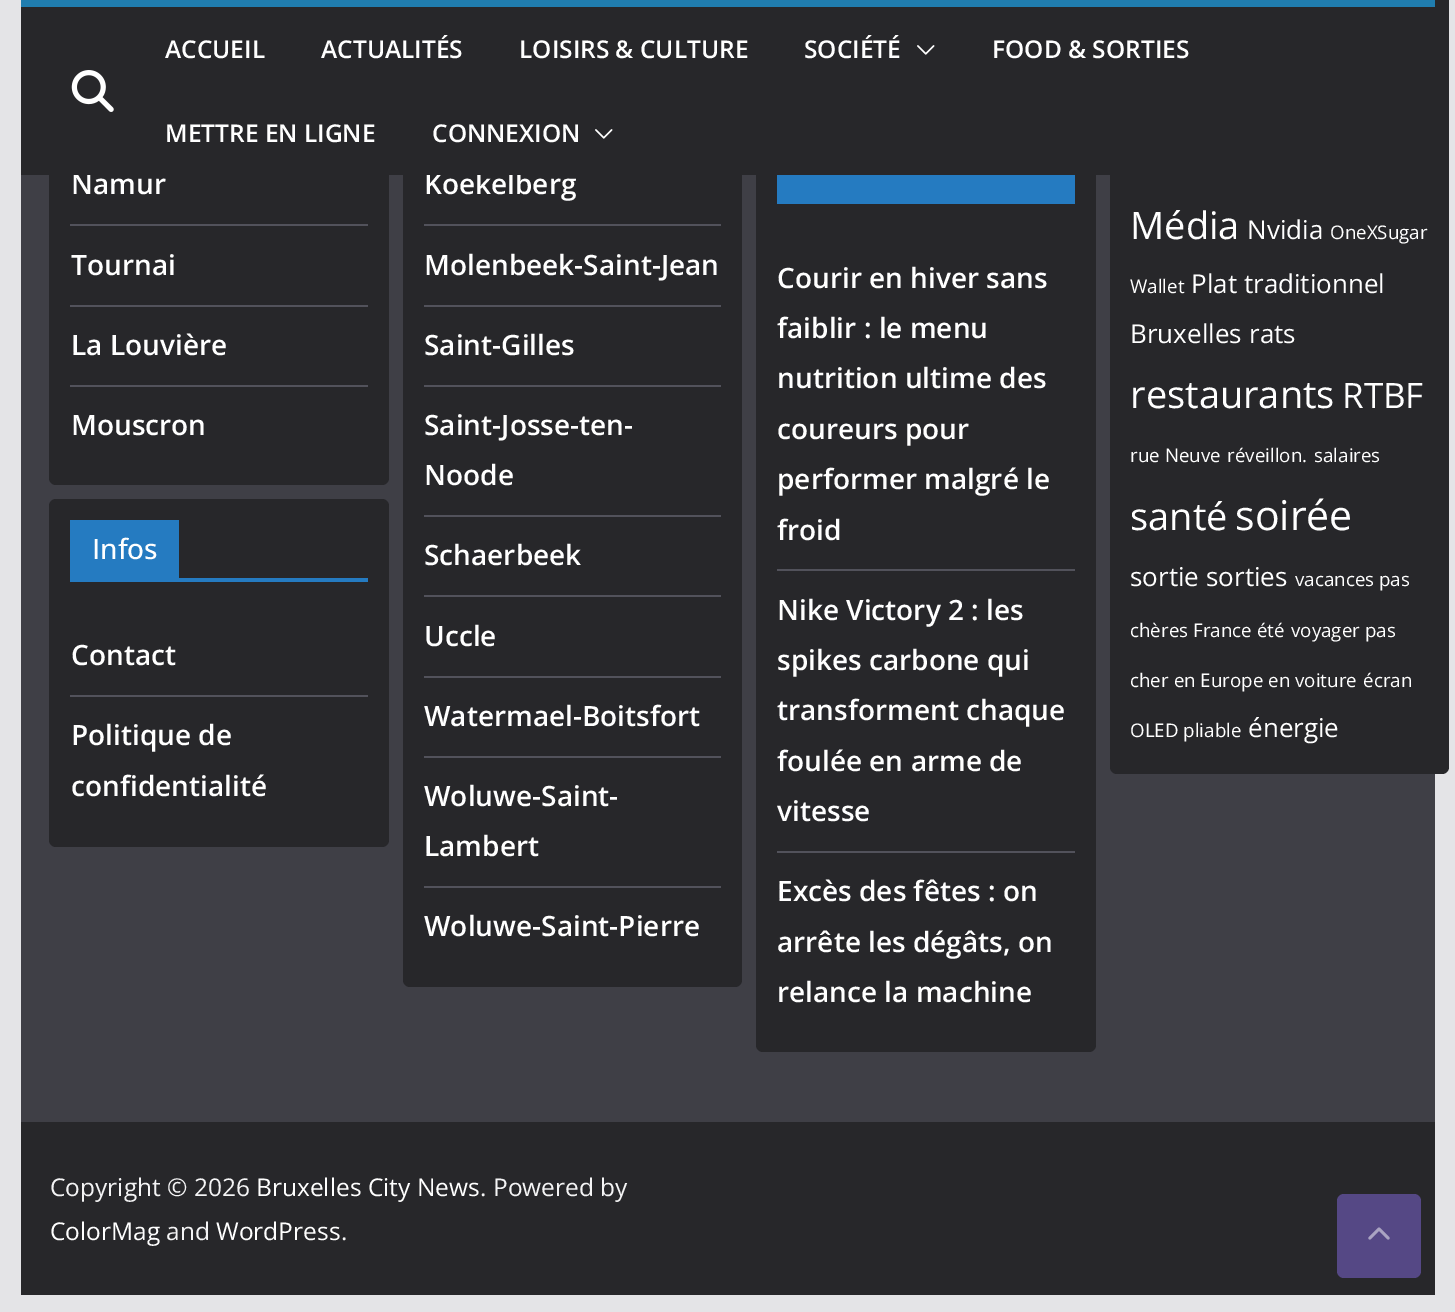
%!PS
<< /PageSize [1455 1312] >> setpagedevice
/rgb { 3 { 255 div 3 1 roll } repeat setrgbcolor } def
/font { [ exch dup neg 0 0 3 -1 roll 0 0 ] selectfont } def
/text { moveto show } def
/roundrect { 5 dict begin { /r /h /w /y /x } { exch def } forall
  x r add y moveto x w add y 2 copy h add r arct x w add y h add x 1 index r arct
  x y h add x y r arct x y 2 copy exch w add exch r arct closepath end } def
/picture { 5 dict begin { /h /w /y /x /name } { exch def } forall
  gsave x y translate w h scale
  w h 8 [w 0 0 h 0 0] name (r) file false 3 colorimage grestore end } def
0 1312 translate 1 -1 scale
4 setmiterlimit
228 228 231 rgb
0 0 1455 1312 rectfill
63 63 70 rgb
21 175 1414 947 rectfill
39 39 42 rgb
49 -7 340 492 7 roundrect fill
403 -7 339 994 7 roundrect fill
1110 -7 339 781 7 roundrect fill
32 125 175 rgb
21 0 1414 7 rectfill
82 82 91 rgb
70 224 298 2 rectfill
70 305 298 2 rectfill
70 385 298 2 rectfill
39 39 42 rgb
49 499 340 348 7 roundrect fill
37 123 193 rgb
70 578 298 4 rectfill
70 520 109 58 rectfill
82 82 91 rgb
70 695 298 2 rectfill
424 224 297 2 rectfill
424 305 297 2 rectfill
424 385 297 2 rectfill
424 515 297 2 rectfill
424 595 297 2 rectfill
424 676 297 2 rectfill
424 756 297 2 rectfill
424 886 297 2 rectfill
39 39 42 rgb
756 86 340 966 7 roundrect fill
37 123 193 rgb
777 175 298 29 rectfill
82 82 91 rgb
777 569 298 2 rectfill
777 851 298 2 rectfill
39 39 42 rgb
21 1122 1414 173 rectfill
85 72 133 rgb
1337 1194 84 84 7 roundrect fill
(img_03.rgb) 1368 1227 22 13 picture
/OpenSans-SemiBold 28 font
255 255 255 rgb
(Namur) 71 194 text
(Tournai) 71 275 text
(La Louvière) 71 355 text
(Mouscron) 71 435 text
/OpenSans-Medium 28 font
(Infos) 92 559 text
/OpenSans-SemiBold 28 font
(Contact) 71 665 text
(Politique de) 71 745 text
(confidentialité) 71 796 text
(Koekelberg) 424 194 text
39 39 42 rgb
21 7 1089 168 rectfill
(img_02.rgb) 595 129 18 10 picture
/OpenSans-SemiBold 24.5 font
255 255 255 rgb
(CONNEXION) 432 142 text
(METTRE EN LIGNE) 165 142 text
(FOOD & SORTIES) 992 58 text
(img_02.rgb) 917 45 18 10 picture
(SOCIÉTÉ) 804 58 text
(LOISIRS & CULTURE) 519 58 text
(ACTUALITÉS) 321 58 text
(ACCUEIL) 165 58 text
(img_01.rgb) 71 70 43 42 picture
/OpenSans-SemiBold 28 font
(Molenbeek-Saint-Jean) 424 275 text
(Saint-Gilles) 424 355 text
(Saint-Josse-ten-) 424 435 text
(Noode) 424 485 text
(Schaerbeek) 424 565 text
(Uccle) 424 646 text
(Watermael-Boitsfort) 424 726 text
(Woluwe-Saint-) 424 806 text
(Lambert) 424 856 text
(Woluwe-Saint-Pierre) 424 936 text
(Courir en hiver sans) 777 288 text
(faiblir : le menu) 777 338 text
(nutrition ultime des) 777 388 text
(coureurs pour) 777 439 text
(performer malgré le) 777 489 text
(froid) 777 540 text
(Nike Victory 2 : les) 777 620 text
(spikes carbone qui) 777 670 text
(transforment chaque) 777 720 text
(foulée en arme de) 777 771 text
(vitesse) 777 821 text
(Excès des fêtes : on) 777 901 text
(arrête les dégâts, on) 777 952 text
(relance la machine) 777 1002 text
/OpenSans-Regular 38 font
(Média) 1130 239 text
/OpenSans-Regular 26 font
(Nvidia) 1247 239 text
/OpenSans-Regular 18.75 font
(OneXSugar) 1330 239 text
(Wallet) 1130 293 text
/OpenSans-Regular 26 font
(Plat traditionnel) 1191 293 text
(Bruxelles) 1130 343 text
(rats) 1249 343 text
/OpenSans-Regular 38 font
(restaurants) 1130 408 text
/OpenSans-Regular 35 font
(RTBF) 1342 408 text
/OpenSans-Regular 18.75 font
(rue Neuve) 1130 462 text
(réveillon.) 1227 462 text
(salaires) 1314 462 text
/OpenSans-Regular 38 font
(santé) 1130 530 text
/OpenSans-Regular 41 font
(soirée) 1235 530 text
/OpenSans-Regular 26 font
(sortie) 1130 586 text
(sorties) 1206 586 text
/OpenSans-Regular 18.75 font
(vacances pas) 1295 586 text
(chères France été) 1130 637 text
(voyager pas) 1291 637 text
(cher en Europe en voiture) 1130 687 text
(écran) 1363 687 text
(OLED pliable) 1130 737 text
/OpenSans-Regular 26 font
(énergie) 1248 737 text
/OpenSans-Regular 24.5 font
244 244 245 rgb
(Copyright © 2026) 50 1196 text
255 255 255 rgb
(Bruxelles City News) 256 1196 text
244 244 245 rgb
(. Powered by) 480 1196 text
255 255 255 rgb
(ColorMag) 50 1240 text
244 244 245 rgb
(and) 166 1240 text
255 255 255 rgb
(WordPress) 216 1240 text
244 244 245 rgb
(.) 341 1240 text
showpage
